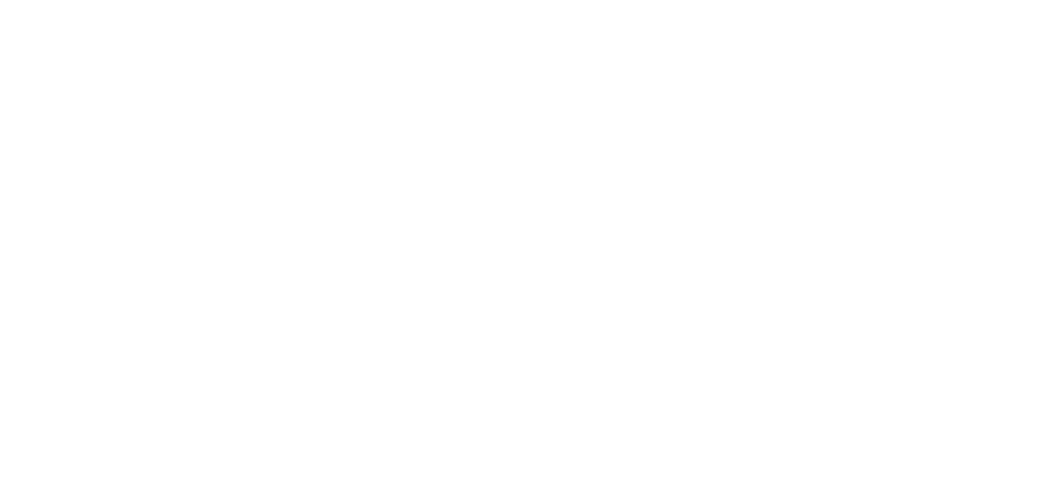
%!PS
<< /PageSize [1043 498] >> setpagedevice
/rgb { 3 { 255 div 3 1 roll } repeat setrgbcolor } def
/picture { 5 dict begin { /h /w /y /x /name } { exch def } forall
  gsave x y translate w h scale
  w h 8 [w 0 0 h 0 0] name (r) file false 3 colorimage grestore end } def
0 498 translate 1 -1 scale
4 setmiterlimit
255 255 255 rgb
0 0 1043 498 rectfill
(img_01.rgb) 25 30 998 215 picture
(img_02.rgb) 296 296 10 7 picture
(img_03.rgb) 952 343 12 12 picture
(img_04.rgb) 1004 342 13 13 picture
showpage
